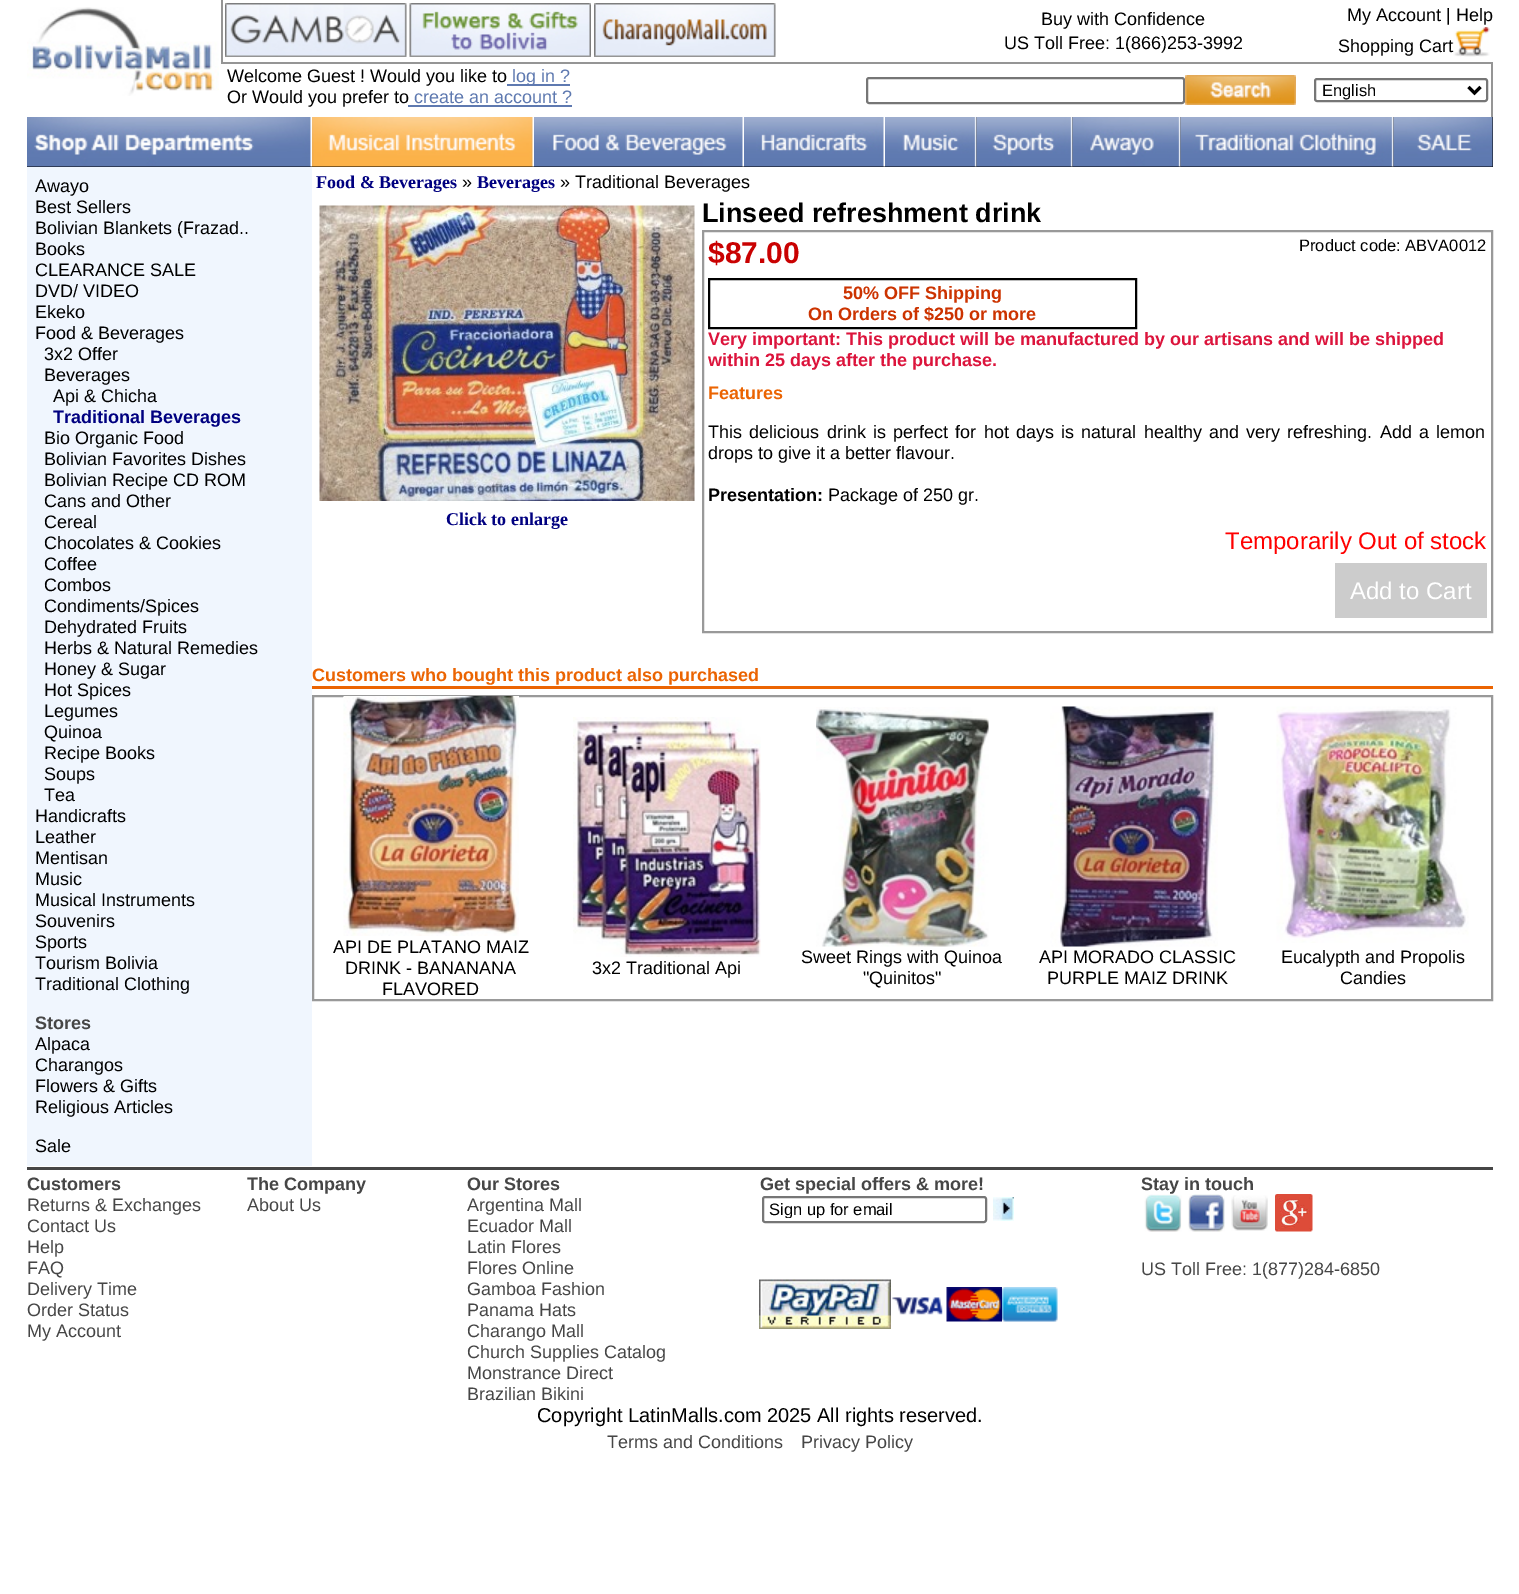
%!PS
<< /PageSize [1519 1594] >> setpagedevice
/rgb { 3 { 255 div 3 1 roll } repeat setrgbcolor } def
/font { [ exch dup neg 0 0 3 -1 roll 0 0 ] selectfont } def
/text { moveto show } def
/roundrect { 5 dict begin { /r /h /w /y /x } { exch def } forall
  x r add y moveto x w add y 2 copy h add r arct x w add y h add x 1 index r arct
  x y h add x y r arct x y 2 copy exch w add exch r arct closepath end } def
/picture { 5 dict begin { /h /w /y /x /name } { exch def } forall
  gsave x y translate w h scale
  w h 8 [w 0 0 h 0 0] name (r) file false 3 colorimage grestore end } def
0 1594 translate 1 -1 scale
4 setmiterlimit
255 255 255 rgb
0 0 1519 1594 rectfill
(img_01.rgb) 27 7 192 89 picture
149 149 149 rgb
221 62 1272 2 rectfill
221 0 2 63 rectfill
(img_02.rgb) 225 3 182 54 picture
(img_03.rgb) 409 3 182 54 picture
(img_04.rgb) 594 3 182 54 picture
1491 63 2 54 rectfill
94 121 176 rgb
507 84 63 2 rectfill
408 105 164 2 rectfill
118 118 118 rgb
2 setlinewidth
867 78 317 25 2 roundrect stroke
(img_06.rgb) 1185 75 111 30 picture
1315 79 172 22 2 roundrect stroke
0 0 0 rgb
3 setlinewidth
1468.5 87 moveto 6 6 rlineto 6 -6 rlineto stroke
27 117 1466 50 rectfill
(img_07.rgb) 27 117 285 50 picture
(img_08.rgb) 312 117 222 50 picture
(img_09.rgb) 534 117 210 50 picture
(img_10.rgb) 744 117 141 50 picture
(img_11.rgb) 885 117 92 50 picture
(img_12.rgb) 976 117 97 50 picture
(img_13.rgb) 1072 117 109 50 picture
(img_14.rgb) 1180 117 214 50 picture
(img_15.rgb) 1393 117 100 50 picture
240 246 254 rgb
27 167 285 999 rectfill
(img_16.rgb) 319 205 376 296 picture
153 153 153 rgb
2 setlinewidth
703 231 789 401 rectstroke
0 0 0 rgb
709 279 427 49 rectstroke
204 204 204 rgb
1335 563 152 55 rectfill
235 100 2 rgb
312 686 1181 3 rectfill
153 153 153 rgb
313 696 1179 304 rectstroke
(img_17.rgb) 343 696 176 240 picture
(img_18.rgb) 573 717 188 240 picture
(img_19.rgb) 816 707 173 240 picture
(img_20.rgb) 1050 706 168 241 picture
(img_21.rgb) 1276 706 193 237 picture
70 70 70 rgb
27 1167 1466 3 rectfill
118 118 118 rgb
763 1197 223 25 2 roundrect stroke
(img_22.rgb) 993 1197 21 24 picture
(img_23.rgb) 1144 1194 38 38 picture
(img_24.rgb) 1188 1194 37 38 picture
(img_25.rgb) 1231 1195 37 36 picture
(img_26.rgb) 1275 1194 38 38 picture
(img_27.rgb) 759 1279 132 50 picture
(img_28.rgb) 892 1297 51 18 picture
(img_29.rgb) 946 1287 56 35 picture
(img_30.rgb) 1002 1287 56 35 picture
/LiberationSans-Regular 18 font
0 0 0 rgb
(Buy with Confidence) 1041 25 text
(US Toll Free: 1\(866\)253-3992) 1004 49 text
(My Account | Help) 1347 21 text
(Shopping Cart) 1338 52 text
(img_05.rgb) 1453 27 37 30 picture
(Welcome Guest ! Would you like to) 227 82 text
94 121 176 rgb
(log in ?) 512 82 text
0 0 0 rgb
(Or Would you prefer to) 227 103 text
94 121 176 rgb
(create an account ?) 414 103 text
/LiberationSans-Regular 16.5 font
0 0 0 rgb
(English) 1322 96 text
/LiberationSans-Regular 18 font
(Awayo) 35 192 text
(Best Sellers) 35 213 text
(Bolivian Blankets \(Frazad..) 35 234 text
(Books) 35 255 text
(CLEARANCE SALE) 35 276 text
(DVD/ VIDEO) 35 297 text
(Ekeko) 35 318 text
(Food & Beverages) 35 339 text
(3x2 Offer) 44 360 text
(Beverages) 44 381 text
(Api & Chicha) 53 402 text
/LiberationSans-Bold 18 font
0 0 128 rgb
(Traditional Beverages) 53 423 text
/LiberationSans-Regular 18 font
0 0 0 rgb
(Bio Organic Food) 44 444 text
(Bolivian Favorites Dishes) 44 465 text
(Bolivian Recipe CD ROM) 44 486 text
(Cans and Other) 44 507 text
(Cereal) 44 528 text
(Chocolates & Cookies) 44 549 text
(Coffee) 44 570 text
(Combos) 44 591 text
(Condiments/Spices) 44 612 text
(Dehydrated Fruits) 44 633 text
(Herbs & Natural Remedies) 44 654 text
(Honey & Sugar) 44 675 text
(Hot Spices) 44 696 text
(Legumes) 44 717 text
(Quinoa) 44 738 text
(Recipe Books) 44 759 text
(Soups) 44 780 text
(Tea) 44 801 text
(Handicrafts) 35 822 text
(Leather) 35 843 text
(Mentisan) 35 864 text
(Music) 35 885 text
(Musical Instruments) 35 906 text
(Souvenirs) 35 927 text
(Sports) 35 948 text
(Tourism Bolivia) 35 969 text
(Traditional Clothing) 35 990 text
/LiberationSans-Bold 18 font
70 70 70 rgb
(Stores) 35 1029 text
/LiberationSans-Regular 18 font
0 0 0 rgb
(Alpaca) 35 1050 text
(Charangos) 35 1071 text
(Flowers & Gifts) 35 1092 text
(Religious Articles) 35 1113 text
(Sale) 35 1152 text
/LiberationSerif-Bold 18 font
0 0 128 rgb
(Food & Beverages) 316 188 text
/LiberationSans-Regular 18 font
0 0 0 rgb
(») 462 188 text
/LiberationSerif-Bold 18 font
0 0 128 rgb
(Beverages) 477 188 text
/LiberationSans-Regular 18 font
0 0 0 rgb
(» Traditional Beverages) 560 188 text
/LiberationSerif-Bold 18 font
0 0 128 rgb
(Click to enlarge) 446 525 text
/LiberationSans-Bold 27 font
0 0 0 rgb
(Linseed refreshment drink) 702 222 text
/LiberationSans-Bold 30 font
201 1 1 rgb
($87.00) 708 263 text
/LiberationSans-Regular 16.5 font
0 0 0 rgb
(Product code: ABVA0012) 1299 251 text
/LiberationSans-Bold 18 font
204 51 0 rgb
(50% OFF Shipping) 843 299 text
(On Orders of $250 or more) 808 320 text
220 20 60 rgb
(Very important: This product will be manufactured by our artisans and will be shipped) 708 345 text
(within 25 days after the purchase.) 708 366 text
235 100 2 rgb
(Features) 708 399 text
/LiberationSans-Regular 18 font
0 0 0 rgb
708 438 moveto 2.25 0 32 (This delicious drink is perfect for hot days is natural healthy and very refreshing. Add a lemon) widthshow
(drops to give it a better flavour.) 708 459 text
/LiberationSans-Bold 18 font
(Presentation:) 708 501 text
/LiberationSans-Regular 18 font
(Package of 250 gr.) 828 501 text
/LiberationSans-Regular 24 font
255 0 0 rgb
(Temporarily Out of stock) 1225 549 text
255 255 255 rgb
(Add to Cart) 1350 599 text
/LiberationSans-Bold 18 font
235 100 2 rgb
(Customers who bought this product also purchased) 312 681 text
/LiberationSans-Regular 18 font
0 0 0 rgb
(API DE PLATANO MAIZ) 333 953 text
(DRINK - BANANANA) 345 974 text
(FLAVORED) 382 995 text
(3x2 Traditional Api) 592 974 text
(Sweet Rings with Quinoa) 801 963 text
("Quinitos") 863 984 text
(API MORADO CLASSIC) 1039 963 text
(PURPLE MAIZ DRINK) 1047 984 text
(Eucalypth and Propolis) 1281 963 text
(Candies) 1340 984 text
/LiberationSans-Bold 18 font
70 70 70 rgb
(Customers) 27 1190 text
/LiberationSans-Regular 18 font
(Returns & Exchanges) 27 1211 text
(Contact Us) 27 1232 text
(Help) 27 1253 text
(FAQ) 27 1274 text
(Delivery Time) 27 1295 text
(Order Status) 27 1316 text
(My Account) 27 1337 text
/LiberationSans-Bold 18 font
(The Company) 247 1190 text
/LiberationSans-Regular 18 font
(About Us) 247 1211 text
/LiberationSans-Bold 18 font
(Our Stores) 467 1190 text
/LiberationSans-Regular 18 font
(Argentina Mall) 467 1211 text
(Ecuador Mall) 467 1232 text
(Latin Flores) 467 1253 text
(Flores Online) 467 1274 text
(Gamboa Fashion) 467 1295 text
(Panama Hats) 467 1316 text
(Charango Mall) 467 1337 text
(Church Supplies Catalog) 467 1358 text
(Monstrance Direct) 467 1379 text
(Brazilian Bikini) 467 1400 text
/LiberationSans-Bold 18 font
(Get special offers & more!) 760 1190 text
gsave
768 1200 213 18 rectclip
/LiberationSans-Regular 16.5 font
0 0 0 rgb
(Sign up for email) 769 1215 text
grestore
(Stay in touch) 1141 1190 text
/LiberationSans-Regular 18 font
(US Toll Free: 1\(877\)284-6850) 1141 1275 text
/LiberationSans-Regular 20 font
0 0 0 rgb
(Copyright LatinMalls.com 2025 All rights reserved.) 537 1422 text
/LiberationSans-Regular 18 font
70 70 70 rgb
(Terms and Conditions) 607 1448 text
(Privacy Policy) 801 1448 text
showpage
